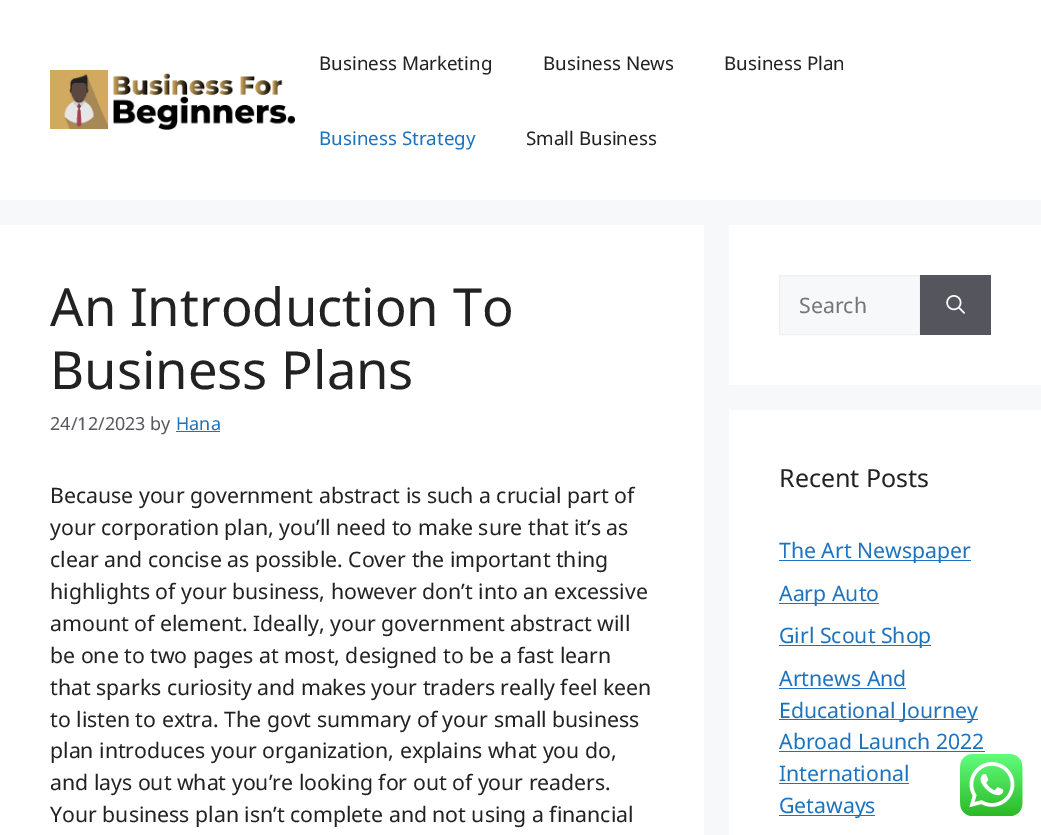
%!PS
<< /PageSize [1041 835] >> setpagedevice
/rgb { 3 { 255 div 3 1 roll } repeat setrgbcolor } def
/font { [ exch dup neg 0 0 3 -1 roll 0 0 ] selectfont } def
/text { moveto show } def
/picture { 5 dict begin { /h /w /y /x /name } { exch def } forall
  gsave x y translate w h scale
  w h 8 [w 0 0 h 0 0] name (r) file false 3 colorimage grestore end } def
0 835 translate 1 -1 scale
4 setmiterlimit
247 248 249 rgb
0 0 1041 835 rectfill
255 255 255 rgb
0 0 1041 200 rectfill
(img_01.rgb) 50 70 245 60 picture
0 225 704 610 rectfill
30 115 190 rgb
176 431 44 1 rectfill
255 255 255 rgb
729 225 312 160 rectfill
247 248 249 rgb
779.5 275.5 moveto 140 0 rlineto 0 59 rlineto -140 0 rlineto closepath gsave fill grestore
240 240 240 rgb
stroke
85 85 94 rgb
920 275 71 60 rectfill
(img_02.rgb) 946 295 19 19 picture
255 255 255 rgb
729 410 312 425 rectfill
30 115 190 rgb
779 560 192 1 rectfill
779 603 100 1 rectfill
779 645 152 1 rectfill
779 688 127 1 rectfill
779 719 199 1 rectfill
779 751 206 1 rectfill
779 783 130 1 rectfill
779 815 96 1 rectfill
(img_03.rgb) 960 754 63 62 picture
/NotoSans-Regular 18.75 font
34 34 34 rgb
(Business Marketing) 319 70 text
(Business News) 543 70 text
(Business Plan) 724 70 text
30 115 190 rgb
(Business Strategy) 319 145 text
34 34 34 rgb
(Small Business) 526 145 text
/NotoSans-Regular 52.5 font
(An Introduction To) 50 326 text
(Business Plans) 50 389 text
/NotoSans-Regular 18 font
87 87 96 rgb
(24/12/2023 by) 50 430 text
30 115 190 rgb
(Hana) 176 430 text
/NotoSans-Regular 21.25 font
34 34 34 rgb
(Because your government abstract is such a crucial part of) 50 503 text
(your corporation plan, you’ll need to make sure that it’s as) 50 535 text
(clear and concise as possible. Cover the important thing) 50 567 text
(highlights of your business, however don’t into an excessive) 50 599 text
(amount of element. Ideally, your government abstract will) 50 631 text
(be one to two pages at most, designed to be a fast learn) 50 663 text
(that sparks curiosity and makes your traders really feel keen) 50 695 text
(to listen to extra. The govt summary of your small business) 50 727 text
(plan introduces your organization, explains what you do,) 50 758 text
(and lays out what you’re looking for out of your readers.) 50 790 text
(Your business plan isn’t complete and not using a financial) 50 822 text
117 117 117 rgb
(Search) 799 313 text
/NotoSans-Regular 25 font
34 34 34 rgb
(Recent Posts) 779 487 text
/NotoSans-Regular 21.25 font
30 115 190 rgb
(The Art Newspaper) 779 558 text
(Aarp Auto) 779 601 text
(Girl Scout Shop) 779 643 text
(Artnews And) 779 686 text
(Educational Journey) 779 718 text
(Abroad Launch 2022) 779 749 text
(International) 779 781 text
(Getaways) 779 813 text
showpage
